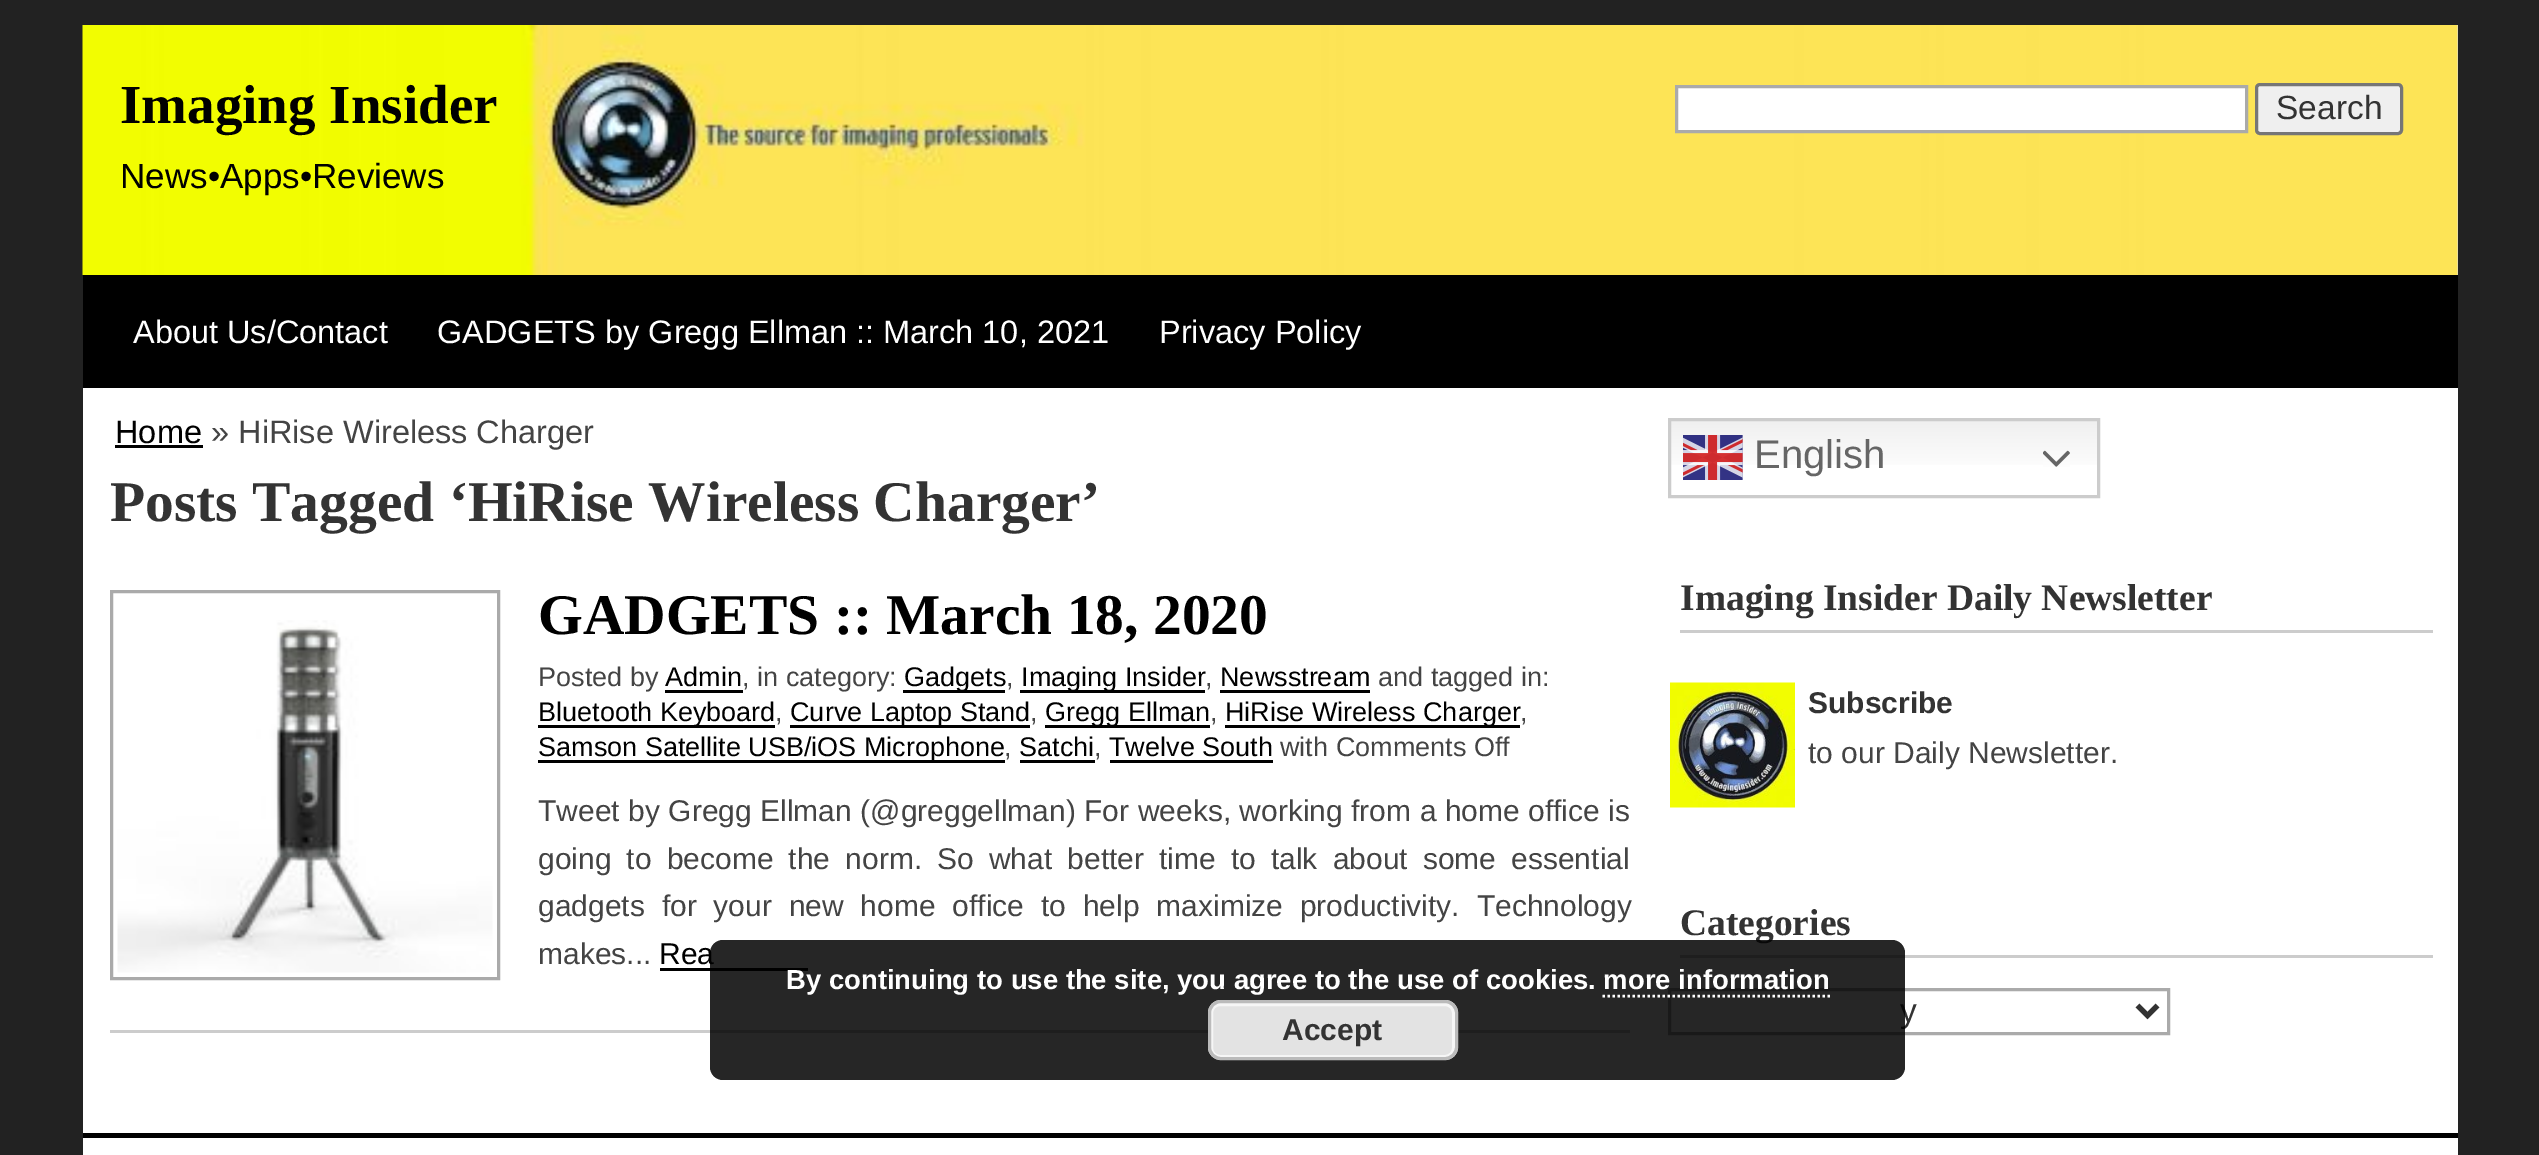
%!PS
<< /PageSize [2539 1155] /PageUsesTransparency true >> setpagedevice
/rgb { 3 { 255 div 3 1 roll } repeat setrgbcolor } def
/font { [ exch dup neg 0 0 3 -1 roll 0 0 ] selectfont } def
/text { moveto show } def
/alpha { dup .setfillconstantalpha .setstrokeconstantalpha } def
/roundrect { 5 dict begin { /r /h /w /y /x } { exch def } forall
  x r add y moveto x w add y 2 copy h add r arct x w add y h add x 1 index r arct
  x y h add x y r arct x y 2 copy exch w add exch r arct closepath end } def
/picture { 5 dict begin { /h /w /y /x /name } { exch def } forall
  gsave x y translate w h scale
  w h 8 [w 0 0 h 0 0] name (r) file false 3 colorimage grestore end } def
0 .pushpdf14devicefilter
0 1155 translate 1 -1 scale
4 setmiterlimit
34 34 34 rgb
0 0 2539 1155 rectfill
221 221 221 rgb
2457 25 1 250 rectfill
(img_01.rgb) 82 25 2376 250 picture
255 255 255 rgb
1676.5 86.5 moveto 570 0 rlineto 0 45 rlineto -570 0 rlineto closepath gsave fill grestore
170 170 170 rgb
3 setlinewidth
stroke
239 239 239 rgb
2256.5 84.5 145 49 3.5 roundrect gsave fill grestore
118 118 118 rgb
stroke
0 0 0 rgb
83 275 2375 113 rectfill
255 255 255 rgb
83 388 2375 767 rectfill
0 0 0 rgb
115 445 88 3 rectfill
204 204 204 rgb
110 1030 1520 3 rectfill
170 170 170 rgb
111.5 591.5 387 387 rectstroke
(img_02.rgb) 117 620 376 353 picture
0 0 0 rgb
665 690 78 3 rectfill
903 690 102 3 rectfill
1020 690 185 3 rectfill
1220 690 150 3 rectfill
538 725 237 3 rectfill
790 725 240 3 rectfill
1045 725 165 3 rectfill
1225 725 295 3 rectfill
538 760 467 3 rectfill
1020 760 75 3 rectfill
1110 760 163 3 rectfill
660 968 148 3 rectfill
gsave 1671 421 moveto 426 0 rlineto 0 44 rlineto -426 0 rlineto closepath clip newpath
<< /ShadingType 2 /ColorSpace /DeviceRGB /Coords [1884 418 1884 498] /Extend [true true] /Function << /FunctionType 3 /Domain [0 1] /Functions [<< /FunctionType 2 /Domain [0 1] /C0 [0.937 0.937 0.937] /C1 [1 1 1] /N 1 >> << /FunctionType 2 /Domain [0 1] /C0 [1 1 1] /C1 [1 1 1] /N 1 >>] /Bounds [0.7] /Encode [0 1 0 1] >> >> shfill grestore
204 204 204 rgb
1669.5 419.5 429 77 rectstroke
(img_03.rgb) 1683 435 60 45 picture
(img_04.rgb) 2043 450 27 17 picture
1680 630 753 3 rectfill
(img_05.rgb) 1670 682 125 126 picture
1680 955 753 3 rectfill
170 170 170 rgb
1669.5 989.5 499 44 rectstroke
51 51 51 rgb
5 setlinewidth
2137.5 1005.5 moveto 10 10 rlineto 10 -10 rlineto stroke
0 0 0 rgb
83 1133 2375 5 rectfill
/LiberationSerif-Bold 55 font
(Imaging Insider) 120 123 text
/LiberationSans-Regular 35 font
(News•Apps•Reviews) 120 188 text
/LiberationSans-Regular 33.5 font
51 51 51 rgb
(Search) 2276 119 text
/LiberationSans-Regular 32.5 font
255 255 255 rgb
(About Us/Contact) 133 343 text
(GADGETS by Gregg Ellman :: March 10, 2021) 437 343 text
(Privacy Policy) 1159 343 text
0 0 0 rgb
(Home) 115 443 text
68 68 68 rgb
(» HiRise Wireless Charger) 211 443 text
/LiberationSerif-Bold 57.5 font
51 51 51 rgb
(Posts Tagged ‘HiRise Wireless Charger’) 110 521 text
0 0 0 rgb
(GADGETS :: March 18, 2020) 538 634 text
/LiberationSans-Regular 27 font
68 68 68 rgb
(Posted by) 538 686 text
0 0 0 rgb
(Admin) 665 686 text
68 68 68 rgb
(, in category:) 742 686 text
0 0 0 rgb
(Gadgets) 904 686 text
68 68 68 rgb
(,) 1006 686 text
0 0 0 rgb
(Imaging Insider) 1021 686 text
68 68 68 rgb
(,) 1205 686 text
0 0 0 rgb
(Newsstream) 1220 686 text
68 68 68 rgb
(and tagged in:) 1378 686 text
0 0 0 rgb
(Bluetooth Keyboard) 538 721 text
68 68 68 rgb
(,) 775 721 text
0 0 0 rgb
(Curve Laptop Stand) 790 721 text
68 68 68 rgb
(,) 1030 721 text
0 0 0 rgb
(Gregg Ellman) 1045 721 text
68 68 68 rgb
(,) 1210 721 text
0 0 0 rgb
(HiRise Wireless Charger) 1225 721 text
68 68 68 rgb
(,) 1520 721 text
0 0 0 rgb
(Samson Satellite USB/iOS Microphone) 538 756 text
68 68 68 rgb
(,) 1004 756 text
0 0 0 rgb
(Satchi) 1019 756 text
68 68 68 rgb
(,) 1094 756 text
0 0 0 rgb
(Twelve South) 1109 756 text
68 68 68 rgb
(with Comments Off) 1280 756 text
/LiberationSans-Regular 30 font
538 821 moveto 0.1 0 32 (Tweet by Gregg Ellman \(@greggellman\) For weeks, working from a home office is) widthshow
538 869 moveto 6.75 0 32 (going to become the norm. So what better time to talk about some essential) widthshow
538 916 moveto 8.5 0 32 (gadgets for your new home office to help maximize productivity. Technology) widthshow
(makes...) 538 964 text
0 0 0 rgb
(Rea) 659 964 text
/LiberationSans-Regular 40 font
102 102 102 rgb
(English) 1754 468 text
/LiberationSerif-Bold 37.5 font
51 51 51 rgb
(Imaging Insider Daily Newsletter) 1680 610 text
/LiberationSans-Bold 30 font
(Subscribe) 1808 713 text
/LiberationSans-Regular 30 font
68 68 68 rgb
(to our Daily Newsletter.) 1808 763 text
/LiberationSerif-Bold 37.5 font
51 51 51 rgb
(Categories) 1680 935 text
/LiberationSans-Regular 33.5 font
(y) 1900 1022 text
0.85 alpha
0 0 0 rgb
710 940 1195 140 13 roundrect fill
/LiberationSans-Bold 27.5 font
1 alpha
255 255 255 rgb
(By continuing to use the site, you agree to the use of cookies. more information) 786 989 text
2.5 setlinewidth
[2.5 2.5] 0 setdash
1602.5 996 moveto 227.5 0 rlineto stroke
227 227 227 rgb
1208 1000 250 60 13 roundrect fill
246 246 246 rgb
3 setlinewidth
[] 0 setdash
1211.5 1004.5 242 52 8.5 roundrect stroke
187 187 187 rgb
1209.5 1001.5 247 57 11.5 roundrect stroke
/LiberationSans-Bold 30 font
51 51 51 rgb
(Accept) 1282 1040 text
.poppdf14devicefilter showpage
